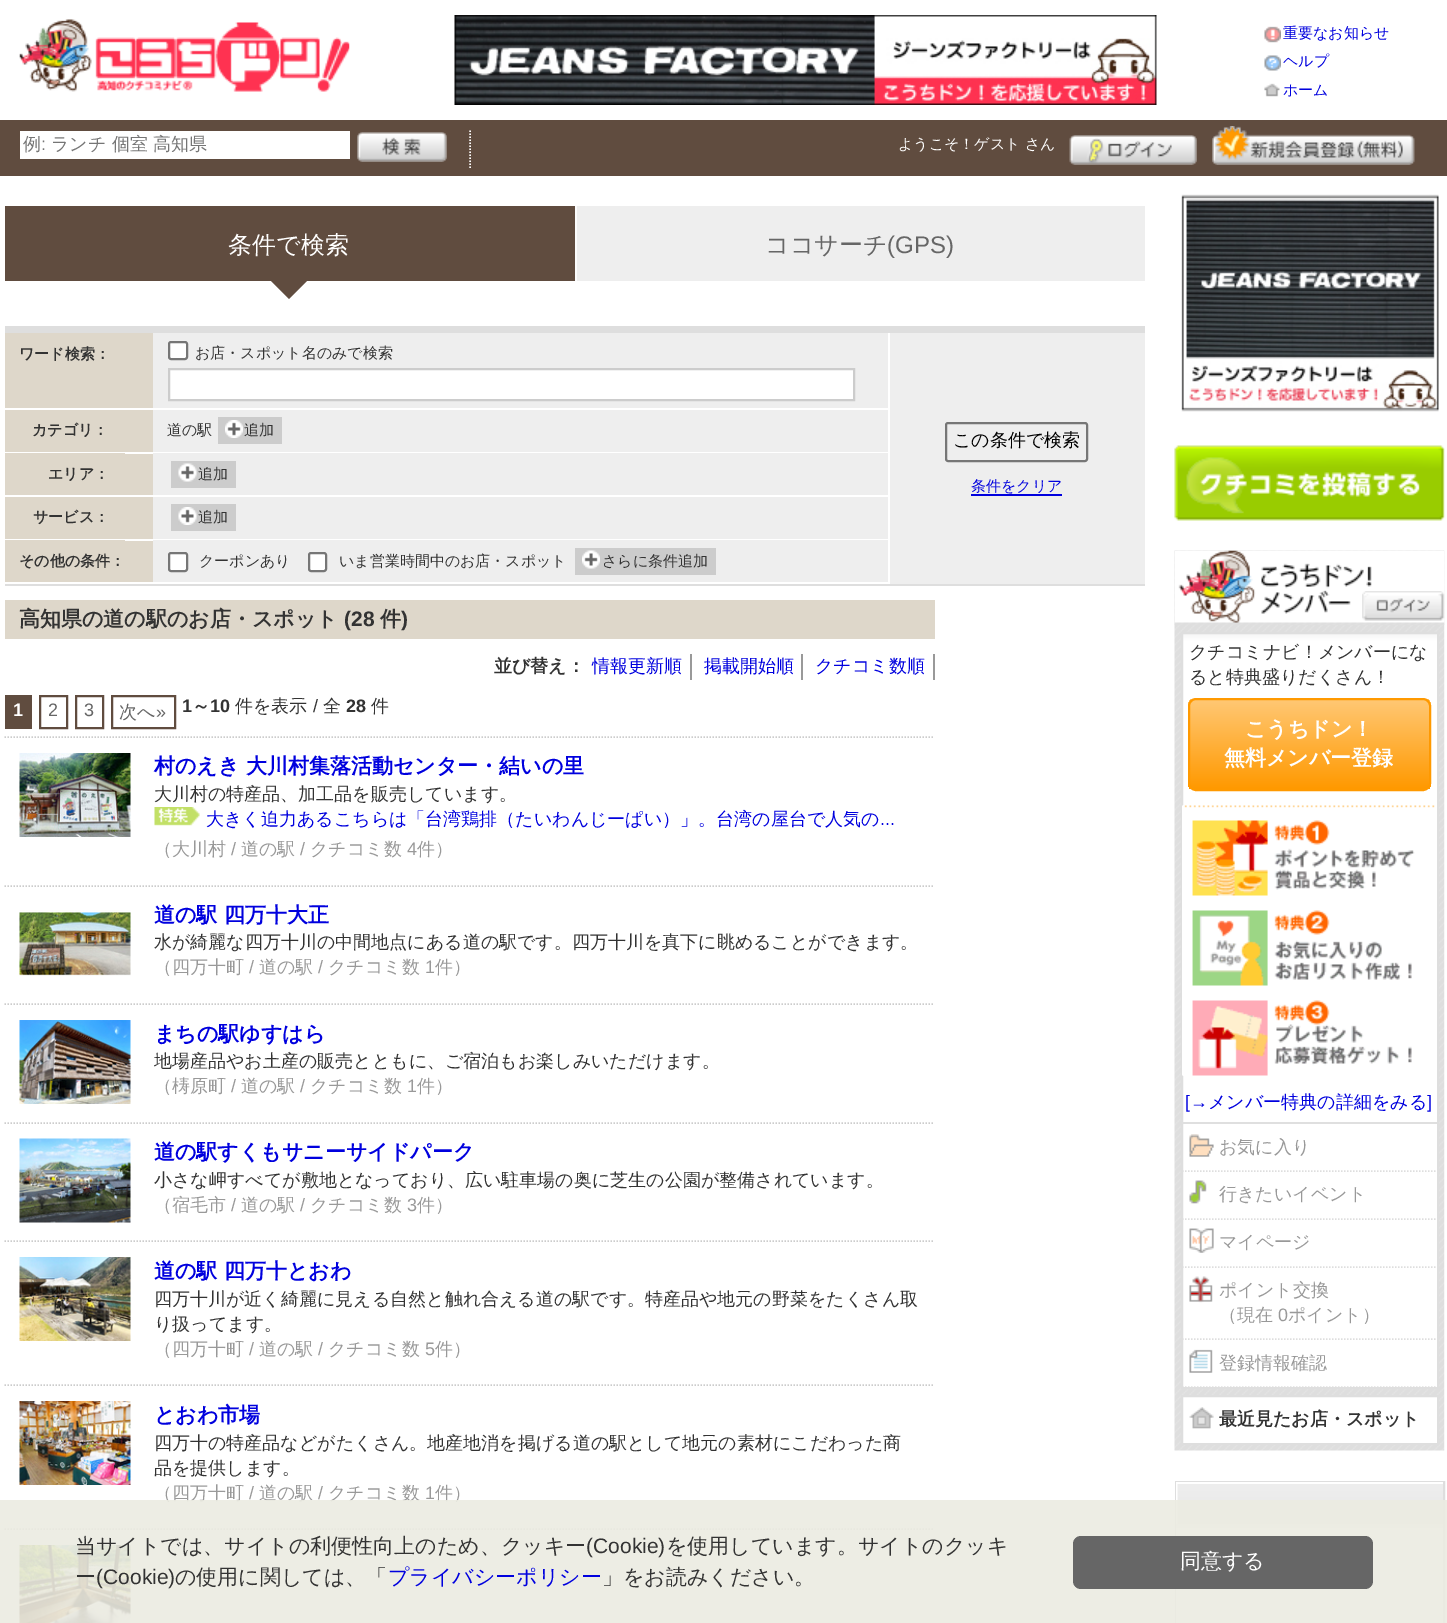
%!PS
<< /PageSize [1447 1623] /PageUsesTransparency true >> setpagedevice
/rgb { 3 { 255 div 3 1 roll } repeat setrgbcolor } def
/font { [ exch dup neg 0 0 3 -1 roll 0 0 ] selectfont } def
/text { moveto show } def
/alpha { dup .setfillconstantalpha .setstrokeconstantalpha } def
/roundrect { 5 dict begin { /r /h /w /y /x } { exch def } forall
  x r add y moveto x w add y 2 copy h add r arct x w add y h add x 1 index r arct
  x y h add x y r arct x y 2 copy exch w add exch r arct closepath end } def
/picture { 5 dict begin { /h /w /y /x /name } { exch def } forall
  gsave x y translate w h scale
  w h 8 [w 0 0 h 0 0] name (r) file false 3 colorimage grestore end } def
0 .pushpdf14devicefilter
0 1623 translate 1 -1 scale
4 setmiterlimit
255 255 255 rgb
0 0 1447 1623 rectfill
(img_01.rgb) 19 19 331 73 picture
(img_02.rgb) 454 15 703 90 picture
(img_03.rgb) 1264 26 17 17 picture
(img_04.rgb) 1264 55 17 16 picture
(img_05.rgb) 1264 83 16 14 picture
96 76 63 rgb
0 120 1447 56 rectfill
255 255 255 rgb
1.5 setlinewidth
[1.5 1.5] 0 setdash
470 130.5 moveto 0 39 rlineto stroke
20 131 330 28 rectfill
(img_06.rgb) 357 132 90 30 picture
(img_07.rgb) 1069 135 128 30 picture
(img_08.rgb) 1212 126 203 39 picture
96 76 63 rgb
5 206 570 75 rectfill
268 278 moveto 21 -21 rlineto 21 21 rlineto -21 21 rlineto closepath fill
238 238 238 rgb
577 206 568 75 rectfill
252 252 252 rgb
575 206 2 75 rectfill
238 238 238 rgb
890 333 255 251 rectfill
222 222 222 rgb
5 326 1140 7 rectfill
5 584 1140 2 rectfill
222 215 202 rgb
5 333 148 249 rectfill
255 255 255 rgb
5 408 148 2 rectfill
238 238 238 rgb
153 333 735 75 rectfill
255 255 255 rgb
169 342 18 17 2 roundrect gsave fill grestore
118 118 118 rgb
2 setlinewidth
[] 0 setdash
stroke
255 255 255 rgb
169 369 moveto 685 0 rlineto 0 31 rlineto -685 0 rlineto closepath gsave fill grestore
204 204 204 rgb
stroke
255 255 255 rgb
5 452 148 2 rectfill
238 238 238 rgb
153 410 735 42 rectfill
204 204 204 rgb
218 417 64 27 rectfill
(img_09.rgb) 225 420 18 18 picture
255 255 255 rgb
5 495 148 2 rectfill
222 215 202 rgb
5 453 120 1 rectfill
238 238 238 rgb
153 453 735 42 rectfill
204 204 204 rgb
171 461 65 27 rectfill
(img_10.rgb) 178 463 19 19 picture
255 255 255 rgb
5 539 148 2 rectfill
238 238 238 rgb
153 497 735 42 rectfill
204 204 204 rgb
171 504 65 27 rectfill
(img_11.rgb) 178 507 19 18 picture
222 215 202 rgb
5 540 120 1 rectfill
238 238 238 rgb
153 540 735 42 rectfill
255 255 255 rgb
169 553 18 18 2 roundrect gsave fill grestore
118 118 118 rgb
stroke
255 255 255 rgb
309 553 17 18 2 roundrect gsave fill grestore
118 118 118 rgb
stroke
204 204 204 rgb
575 548 141 27 rectfill
(img_12.rgb) 582 550 18 19 picture
118 118 118 rgb
946 423 141 38 2 roundrect stroke
0 0 222 rgb
971 494 91 2 rectfill
222 215 202 rgb
5 600 930 39 rectfill
153 153 153 rgb
690 654 2 26 rectfill
801 654 2 26 rectfill
933 654 2 26 rectfill
96 76 63 rgb
5 695 27 34 rectfill
40 696 27 32 rectstroke
76 696 27 32 rectstroke
112 696 63 32 rectstroke
204 204 204 rgb
1.5 setlinewidth
[1.5 1.5] 0 setdash
4.5 737 moveto 930 0 rlineto stroke
4.5 886 moveto 930 0 rlineto stroke
(img_13.rgb) 19 753 112 84 picture
(img_14.rgb) 154 807 46 19 picture
4.5 1004 moveto 930 0 rlineto stroke
(img_15.rgb) 19 910 112 66 picture
4.5 1123 moveto 930 0 rlineto stroke
(img_16.rgb) 19 1020 112 84 picture
4.5 1241 moveto 930 0 rlineto stroke
(img_17.rgb) 19 1138 112 85 picture
4.5 1385 moveto 930 0 rlineto stroke
(img_18.rgb) 19 1257 112 84 picture
4.5 1529 moveto 930 0 rlineto stroke
(img_19.rgb) 19 1401 112 84 picture
(img_20.rgb) 19 1545 112 78 picture
(img_21.rgb) 1181 194 258 218 picture
(img_22.rgb) 1174 445 271 76 picture
(img_23.rgb) 1174 550 271 901 picture
(img_24.rgb) 1174 550 271 75 picture
gsave 1183 634 moveto 254 0 rlineto 0 753 rlineto -254 0 rlineto closepath clip newpath
<< /ShadingType 2 /ColorSpace /DeviceRGB /Coords [1310 633 1310 1388] /Extend [true true] /Function << /FunctionType 3 /Domain [0 1] /Functions [<< /FunctionType 2 /Domain [0 1] /C0 [0.961 0.961 0.961] /C1 [1 1 1] /N 1 >> << /FunctionType 2 /Domain [0 1] /C0 [1 1 1] /C1 [1 1 1] /N 1 >>] /Bounds [0.01] /Encode [0 1 0 1] >> >> shfill grestore
222 222 222 rgb
2 setlinewidth
[] 0 setdash
1182 633 256 755 rectstroke
gsave
1188 698 243 93 8 roundrect clip newpath
gsave 1188 699 moveto 243 0 rlineto 0 90 rlineto -243 0 rlineto closepath clip newpath
<< /ShadingType 2 /ColorSpace /DeviceRGB /Coords [1310 699 1310 789] /Extend [true true] /Function << /FunctionType 2 /Domain [0 1] /C0 [1 0.784 0.459] /C1 [1 0.6 0] /N 1 >> >> shfill grestore
grestore
255 153 0 rgb
1189 699 241 91 7 roundrect stroke
223 223 223 rgb
1182 1122 255 2 rectfill
(img_25.rgb) 1182 805 253 271 picture
(img_26.rgb) 1362 591 83 30 picture
(img_27.rgb) 1189 1134 25 23 picture
222 222 222 rgb
1.5 setlinewidth
[1.5 1.5] 0 setdash
1182 1171 moveto 255 0 rlineto stroke
(img_28.rgb) 1189 1180 18 24 picture
1182 1219 moveto 255 0 rlineto stroke
(img_29.rgb) 1189 1228 25 25 picture
1182 1267 moveto 255 0 rlineto stroke
(img_30.rgb) 1189 1276 24 27 picture
1182 1339 moveto 255 0 rlineto stroke
(img_31.rgb) 1189 1349 24 24 picture
1182 1387 moveto 255 0 rlineto stroke
255 255 255 rgb
1182 1396 moveto 256 0 rlineto 0 48 rlineto -256 0 rlineto closepath gsave fill grestore
222 222 222 rgb
2 setlinewidth
[] 0 setdash
stroke
(img_32.rgb) 1189 1407 25 22 picture
1176 1482 268 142 rectstroke
gsave 1178 1484 moveto 265 0 rlineto 0 40 rlineto -265 0 rlineto closepath clip newpath
<< /ShadingType 2 /ColorSpace /DeviceRGB /Coords [1310 1484 1310 1524] /Extend [true true] /Function << /FunctionType 2 /Domain [0 1] /C0 [0.933 0.933 0.933] /C1 [0.91 0.91 0.91] /N 1 >> >> shfill grestore
255 255 255 rgb
1176 1482 267 2 rectfill
1176 1482 1 42 rectfill
gsave 1176 1524 moveto 267 0 rlineto 0 99 rlineto -267 0 rlineto closepath clip newpath
<< /ShadingType 2 /ColorSpace /DeviceRGB /Coords [1310 1524 1310 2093] /Extend [true true] /Function << /FunctionType 3 /Domain [0 1] /Functions [<< /FunctionType 2 /Domain [0 1] /C0 [0.961 0.961 0.961] /C1 [1 1 1] /N 1 >> << /FunctionType 2 /Domain [0 1] /C0 [1 1 1] /C1 [1 1 1] /N 1 >>] /Bounds [0.01] /Encode [0 1 0 1] >> >> shfill grestore
/WenQuanYiZenHei-Medium 15 font
0 0 222 rgb
(重要なお知らせ) 1283 38 text
(ヘルプ) 1283 66 text
(ホーム) 1283 95 text
/WenQuanYiZenHei-Medium 18 font
117 117 117 rgb
(例) 23 150 text
/LiberationSans-Regular 18 font
(:) 41 150 text
/WenQuanYiZenHei-Medium 18 font
(ランチ 個室 高知県) 51 150 text
/WenQuanYiZenHei-Medium 15 font
255 255 255 rgb
(ようこそ！ゲスト) 898 149 text
(さん) 1025 149 text
/WenQuanYiZenHei-Medium 24 font
(条件で検索) 228 253 text
102 102 102 rgb
(ココサーチ) 765 253 text
/LiberationSans-Regular 24 font
(\(GPS\)) 887 253 text
/WenQuanYiZenHei-Bold 15 font
51 51 51 rgb
(ワード検索：) 19 359 text
/WenQuanYiZenHei-Medium 15 font
(お店・スポット名のみで検索) 195 358 text
/WenQuanYiZenHei-Bold 15 font
(カテゴリ：) 32 435 text
/WenQuanYiZenHei-Medium 15 font
(道の駅) 167 435 text
(追加) 244 435 text
/WenQuanYiZenHei-Bold 15 font
(エリア：) 48 479 text
/WenQuanYiZenHei-Medium 15 font
(追加) 198 479 text
/WenQuanYiZenHei-Bold 15 font
(サービス：) 33 522 text
/WenQuanYiZenHei-Medium 15 font
(追加) 198 522 text
/WenQuanYiZenHei-Bold 15 font
(その他の条件：) 19 566 text
/WenQuanYiZenHei-Medium 15 font
(クーポンあり) 199 566 text
(いま営業時間中のお店・スポット) 339 566 text
(さらに条件追加) 602 566 text
/WenQuanYiZenHei-Medium 18 font
0 0 0 rgb
(この条件で検索) 953 446 text
/WenQuanYiZenHei-Medium 15 font
0 0 222 rgb
(条件をクリア) 971 491 text
/WenQuanYiZenHei-Bold 21 font
51 51 51 rgb
(高知県の道の駅のお店・スポット) 19 626 text
/LiberationSans-Bold 21 font
(\(28) 344 626 text
/WenQuanYiZenHei-Bold 21 font
(件) 380 626 text
/LiberationSans-Bold 21 font
(\)) 401 626 text
/WenQuanYiZenHei-Bold 18 font
(並び替え：) 494 672 text
/WenQuanYiZenHei-Medium 18 font
0 0 222 rgb
(情報更新順) 592 672 text
(掲載開始順) 704 672 text
(クチコミ数順) 815 672 text
/LiberationSans-Bold 18 font
255 255 255 rgb
(1) 13 716 text
/LiberationSans-Regular 18 font
102 102 102 rgb
(2) 48 716 text
(3) 84 716 text
/WenQuanYiZenHei-Medium 18 font
(次へ) 119 718 text
/LiberationSans-Regular 18 font
(») 156 718 text
/LiberationSans-Bold 18 font
51 51 51 rgb
(1) 182 712 text
/WenQuanYiZenHei-Bold 18 font
(～) 192 712 text
/LiberationSans-Bold 18 font
(10) 210 712 text
/WenQuanYiZenHei-Medium 18 font
(件を表示) 235 712 text
/LiberationSans-Regular 18 font
(/) 313 712 text
/WenQuanYiZenHei-Medium 18 font
(全) 323 712 text
/LiberationSans-Bold 18 font
(28) 346 712 text
/WenQuanYiZenHei-Medium 18 font
(件) 371 712 text
/WenQuanYiZenHei-Bold 21 font
0 0 222 rgb
(村のえき 大川村集落活動センター・結いの里) 154 773 text
/WenQuanYiZenHei-Medium 18 font
51 51 51 rgb
(大川村の特産品、加工品を販売しています。) 154 800 text
0 0 222 rgb
(大きく迫力あるこちらは「台湾鶏排（たいわんじーぱい）」。台湾の屋台で人気の) 206 825 text
/LiberationSans-Regular 18 font
(...) 880 825 text
/WenQuanYiZenHei-Medium 18 font
153 153 153 rgb
(（大川村) 154 855 text
/LiberationSans-Regular 18 font
(/) 231 855 text
/WenQuanYiZenHei-Medium 18 font
(道の駅) 241 855 text
/LiberationSans-Regular 18 font
(/) 300 855 text
/WenQuanYiZenHei-Medium 18 font
(クチコミ数) 310 855 text
/LiberationSans-Regular 18 font
(4) 407 855 text
/WenQuanYiZenHei-Medium 18 font
(件）) 417 855 text
/WenQuanYiZenHei-Bold 21 font
0 0 222 rgb
(道の駅 四万十大正) 154 922 text
/WenQuanYiZenHei-Medium 18 font
51 51 51 rgb
(水が綺麗な四万十川の中間地点にある道の駅です。四万十川を真下に眺めることができます。) 154 948 text
153 153 153 rgb
(（四万十町) 154 973 text
/LiberationSans-Regular 18 font
(/) 249 973 text
/WenQuanYiZenHei-Medium 18 font
(道の駅) 259 973 text
/LiberationSans-Regular 18 font
(/) 318 973 text
/WenQuanYiZenHei-Medium 18 font
(クチコミ数) 328 973 text
/LiberationSans-Regular 18 font
(1) 425 973 text
/WenQuanYiZenHei-Medium 18 font
(件）) 435 973 text
/WenQuanYiZenHei-Bold 21 font
0 0 222 rgb
(まちの駅ゆすはら) 154 1041 text
/WenQuanYiZenHei-Medium 18 font
51 51 51 rgb
(地場産品やお土産の販売とともに、ご宿泊もお楽しみいただけます。) 154 1067 text
153 153 153 rgb
(（梼原町) 154 1092 text
/LiberationSans-Regular 18 font
(/) 231 1092 text
/WenQuanYiZenHei-Medium 18 font
(道の駅) 241 1092 text
/LiberationSans-Regular 18 font
(/) 300 1092 text
/WenQuanYiZenHei-Medium 18 font
(クチコミ数) 310 1092 text
/LiberationSans-Regular 18 font
(1) 407 1092 text
/WenQuanYiZenHei-Medium 18 font
(件）) 417 1092 text
/WenQuanYiZenHei-Bold 21 font
0 0 222 rgb
(道の駅すくもサニーサイドパーク) 154 1159 text
/WenQuanYiZenHei-Medium 18 font
51 51 51 rgb
(小さな岬すべてが敷地となっており、広い駐車場の奥に芝生の公園が整備されています。) 154 1186 text
153 153 153 rgb
(（宿毛市) 154 1211 text
/LiberationSans-Regular 18 font
(/) 231 1211 text
/WenQuanYiZenHei-Medium 18 font
(道の駅) 241 1211 text
/LiberationSans-Regular 18 font
(/) 300 1211 text
/WenQuanYiZenHei-Medium 18 font
(クチコミ数) 310 1211 text
/LiberationSans-Regular 18 font
(3) 407 1211 text
/WenQuanYiZenHei-Medium 18 font
(件）) 417 1211 text
/WenQuanYiZenHei-Bold 21 font
0 0 222 rgb
(道の駅 四万十とおわ) 154 1278 text
/WenQuanYiZenHei-Medium 18 font
51 51 51 rgb
(四万十川が近く綺麗に見える自然と触れ合える道の駅です。特産品や地元の野菜をたくさん取) 154 1305 text
(り扱ってます。) 154 1330 text
153 153 153 rgb
(（四万十町) 154 1355 text
/LiberationSans-Regular 18 font
(/) 249 1355 text
/WenQuanYiZenHei-Medium 18 font
(道の駅) 259 1355 text
/LiberationSans-Regular 18 font
(/) 318 1355 text
/WenQuanYiZenHei-Medium 18 font
(クチコミ数) 328 1355 text
/LiberationSans-Regular 18 font
(5) 425 1355 text
/WenQuanYiZenHei-Medium 18 font
(件）) 435 1355 text
/WenQuanYiZenHei-Bold 21 font
0 0 222 rgb
(とおわ市場) 154 1422 text
/WenQuanYiZenHei-Medium 18 font
51 51 51 rgb
(四万十の特産品などがたくさん。地産地消を掲げる道の駅として地元の素材にこだわった商) 154 1449 text
(品を提供します。) 154 1474 text
153 153 153 rgb
(（四万十町) 154 1499 text
/LiberationSans-Regular 18 font
(/) 249 1499 text
/WenQuanYiZenHei-Medium 18 font
(道の駅) 259 1499 text
/LiberationSans-Regular 18 font
(/) 318 1499 text
/WenQuanYiZenHei-Medium 18 font
(クチコミ数) 328 1499 text
/LiberationSans-Regular 18 font
(1) 425 1499 text
/WenQuanYiZenHei-Medium 18 font
(件）) 435 1499 text
51 51 51 rgb
(クチコミナビ！メンバーにな) 1189 658 text
(ると特典盛りだくさん！) 1189 683 text
/WenQuanYiZenHei-Bold 21 font
255 255 255 rgb
(こうちドン！) 1245 736 text
(無料メンバー登録) 1224 765 text
/LiberationSans-Regular 18 font
0 0 222 rgb
([→) 1185 1108 text
/WenQuanYiZenHei-Medium 18 font
(メンバー特典の詳細をみる) 1208 1108 text
/LiberationSans-Regular 18 font
(]) 1427 1108 text
/WenQuanYiZenHei-Medium 18 font
153 153 153 rgb
(お気に入り) 1219 1153 text
(行きたいイベント) 1219 1200 text
(マイページ) 1219 1248 text
(ポイント交換) 1219 1296 text
(（現在) 1219 1321 text
/LiberationSans-Regular 18 font
(0) 1278 1321 text
/WenQuanYiZenHei-Medium 18 font
(ポイント）) 1288 1321 text
(登録情報確認) 1219 1369 text
/WenQuanYiZenHei-Bold 18 font
51 51 51 rgb
(最近見たお店・スポット) 1219 1425 text
0.9 alpha
235 235 225 rgb
0 1500 1447 123 rectfill
/WenQuanYiZenHei-Medium 21 font
1 alpha
51 51 51 rgb
(当サイトでは、サイトの利便性向上のため、クッキー) 75 1553 text
/LiberationSans-Regular 21 font
(\(Cookie\)) 586 1553 text
/WenQuanYiZenHei-Medium 21 font
(を使用しています。サイトのクッキ) 666 1553 text
(ー) 75 1584 text
/LiberationSans-Regular 21 font
(\(Cookie\)) 96 1584 text
/WenQuanYiZenHei-Medium 21 font
(の使用に関しては、「) 175 1584 text
0 0 222 rgb
(プライバシーポリシー) 388 1584 text
51 51 51 rgb
(」をお読みください。) 602 1584 text
102 102 102 rgb
1073 1536 300 53 8 roundrect fill
255 255 255 rgb
(同意する) 1180 1568 text
.poppdf14devicefilter showpage
